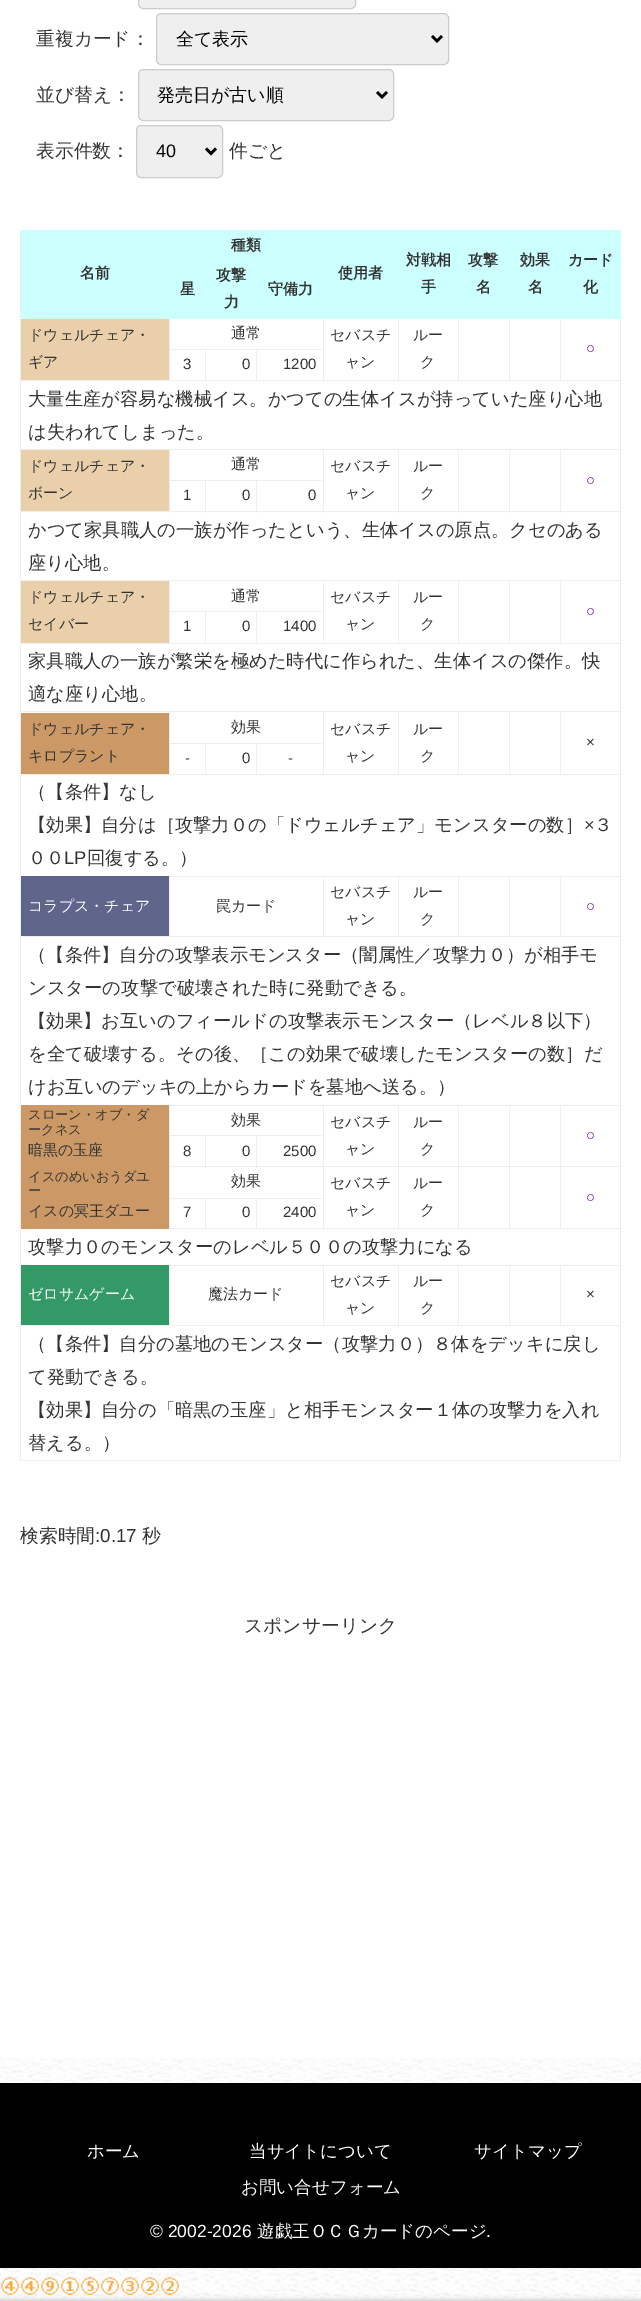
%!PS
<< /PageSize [641 2301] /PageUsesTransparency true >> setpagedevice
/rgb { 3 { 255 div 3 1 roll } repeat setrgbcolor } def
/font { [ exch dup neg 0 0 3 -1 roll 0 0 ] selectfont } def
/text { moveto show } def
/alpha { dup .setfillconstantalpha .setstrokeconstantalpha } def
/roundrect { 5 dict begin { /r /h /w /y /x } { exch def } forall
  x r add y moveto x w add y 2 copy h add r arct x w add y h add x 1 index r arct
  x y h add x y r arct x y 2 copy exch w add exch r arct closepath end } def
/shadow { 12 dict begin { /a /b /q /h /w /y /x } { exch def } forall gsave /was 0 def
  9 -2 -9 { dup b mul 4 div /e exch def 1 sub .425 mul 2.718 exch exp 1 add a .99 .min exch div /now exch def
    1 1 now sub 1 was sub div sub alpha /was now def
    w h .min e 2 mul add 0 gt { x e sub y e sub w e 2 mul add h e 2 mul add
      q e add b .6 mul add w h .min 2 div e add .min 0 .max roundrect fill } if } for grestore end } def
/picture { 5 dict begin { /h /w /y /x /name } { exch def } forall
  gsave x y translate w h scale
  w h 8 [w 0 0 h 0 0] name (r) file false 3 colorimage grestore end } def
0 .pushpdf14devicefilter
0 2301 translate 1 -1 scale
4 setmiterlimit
255 255 255 rgb
0 0 641 2301 rectfill
(img_01.rgb) 0 2053 641 248 picture
0 -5 641 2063 5 roundrect fill
239 239 239 rgb
138.5 -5.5 217 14 4.5 roundrect gsave fill grestore
204 204 204 rgb
stroke
239 239 239 rgb
156.5 13.5 292 51 4.5 roundrect gsave fill grestore
204 204 204 rgb
stroke
0 0 0 rgb
2.5 setlinewidth
432 36 moveto 5 5 rlineto 5 -5 rlineto stroke
239 239 239 rgb
138.5 69.5 255 51 4.5 roundrect gsave fill grestore
204 204 204 rgb
1 setlinewidth
stroke
0 0 0 rgb
2.5 setlinewidth
377 92 moveto 5 5 rlineto 5 -5 rlineto stroke
239 239 239 rgb
136.5 125.5 86 52 4.5 roundrect gsave fill grestore
204 204 204 rgb
1 setlinewidth
stroke
0 0 0 rgb
2.5 setlinewidth
206 148.5 moveto 5 5 rlineto 5 -5 rlineto stroke
204 255 255 rgb
169 230 154 31 rectfill
21 230 148 89 rectfill
238 238 238 rgb
256 349 68 1 rectfill
20 380 601 1 rectfill
323 318 1 63 rectfill
398 318 1 63 rectfill
458 318 1 63 rectfill
509 318 1 63 rectfill
560 318 1 63 rectfill
560 449 61 1 rectfill
20 511 601 1 rectfill
560 580 61 1 rectfill
20 643 601 1 rectfill
560 711 61 1 rectfill
20 774 601 1 rectfill
560 876 61 1 rectfill
20 936 601 1 rectfill
560 1105 61 1 rectfill
560 1166 61 1 rectfill
170 1228 451 1 rectfill
560 1265 61 1 rectfill
20 1325 601 1 rectfill
620 1325 1 136 rectfill
620 1265 1 61 rectfill
620 1228 1 38 rectfill
620 1166 1 63 rectfill
620 1105 1 63 rectfill
620 936 1 170 rectfill
620 876 1 62 rectfill
620 774 1 104 rectfill
620 711 1 64 rectfill
620 643 1 70 rectfill
620 580 1 64 rectfill
620 511 1 70 rectfill
620 449 1 64 rectfill
620 318 1 132 rectfill
204 255 255 rgb
323 230 298 89 rectfill
238 238 238 rgb
256 349 1 32 rectfill
205 349 53 1 rectfill
205 349 1 32 rectfill
169 349 37 1 rectfill
169 318 1 63 rectfill
204 255 255 rgb
169 261 154 58 rectfill
233 208 171 rgb
21 319 148 61 rectfill
238 238 238 rgb
560 449 1 64 rectfill
509 449 52 1 rectfill
509 449 1 64 rectfill
458 449 52 1 rectfill
458 449 1 64 rectfill
398 449 61 1 rectfill
398 449 1 64 rectfill
323 449 76 1 rectfill
256 480 68 1 rectfill
323 449 1 64 rectfill
169 449 155 1 rectfill
256 480 1 33 rectfill
205 480 53 1 rectfill
205 480 1 33 rectfill
169 480 37 1 rectfill
169 480 1 33 rectfill
169 449 1 32 rectfill
20 449 150 1 rectfill
560 580 1 64 rectfill
509 580 52 1 rectfill
509 580 1 64 rectfill
458 580 52 1 rectfill
458 580 1 64 rectfill
398 580 61 1 rectfill
398 580 1 64 rectfill
323 580 76 1 rectfill
256 611 68 1 rectfill
323 580 1 64 rectfill
169 580 155 1 rectfill
256 611 1 33 rectfill
205 611 53 1 rectfill
205 611 1 33 rectfill
169 611 37 1 rectfill
169 611 1 33 rectfill
169 580 1 33 rectfill
20 580 150 1 rectfill
560 711 1 64 rectfill
509 711 52 1 rectfill
509 711 1 64 rectfill
458 711 52 1 rectfill
458 711 1 64 rectfill
398 711 61 1 rectfill
398 711 1 64 rectfill
323 711 76 1 rectfill
256 743 68 1 rectfill
323 711 1 64 rectfill
169 711 155 1 rectfill
256 743 1 32 rectfill
205 743 53 1 rectfill
205 743 1 32 rectfill
169 743 37 1 rectfill
169 743 1 32 rectfill
169 711 1 33 rectfill
20 711 150 1 rectfill
20 1460 601 1 rectfill
20 1105 1 356 rectfill
20 876 1 230 rectfill
20 774 1 104 rectfill
20 711 1 64 rectfill
20 643 1 70 rectfill
20 580 1 64 rectfill
20 511 1 70 rectfill
20 449 1 64 rectfill
20 230 1 220 rectfill
233 208 171 rgb
21 450 148 61 rectfill
21 581 148 62 rectfill
204 153 102 rgb
21 713 148 61 rectfill
95 101 139 rgb
21 876 148 60 rectfill
238 238 238 rgb
560 876 1 62 rectfill
509 876 52 1 rectfill
509 876 1 62 rectfill
458 876 52 1 rectfill
458 876 1 62 rectfill
398 876 61 1 rectfill
398 876 1 62 rectfill
323 876 76 1 rectfill
323 876 1 62 rectfill
169 876 155 1 rectfill
169 876 1 62 rectfill
204 153 102 rgb
21 1105 148 124 rectfill
238 238 238 rgb
560 1166 1 63 rectfill
509 1166 52 1 rectfill
560 1105 1 63 rectfill
509 1105 52 1 rectfill
509 1166 1 63 rectfill
458 1166 52 1 rectfill
509 1105 1 63 rectfill
458 1105 52 1 rectfill
458 1166 1 63 rectfill
398 1166 61 1 rectfill
458 1105 1 63 rectfill
398 1105 61 1 rectfill
398 1166 1 63 rectfill
323 1166 76 1 rectfill
398 1105 1 63 rectfill
323 1105 76 1 rectfill
256 1135 68 1 rectfill
256 1198 68 1 rectfill
323 1166 1 63 rectfill
169 1166 155 1 rectfill
323 1105 1 63 rectfill
169 1105 155 1 rectfill
256 1135 1 33 rectfill
205 1135 53 1 rectfill
205 1135 1 33 rectfill
169 1135 37 1 rectfill
256 1198 1 31 rectfill
205 1198 53 1 rectfill
205 1198 1 31 rectfill
169 1198 37 1 rectfill
169 1198 1 31 rectfill
169 1166 1 33 rectfill
169 1135 1 33 rectfill
169 1105 1 31 rectfill
51 153 102 rgb
21 1265 148 60 rectfill
238 238 238 rgb
560 1265 1 61 rectfill
509 1265 52 1 rectfill
509 1265 1 61 rectfill
458 1265 52 1 rectfill
458 1265 1 61 rectfill
398 1265 61 1 rectfill
398 1265 1 61 rectfill
323 1265 76 1 rectfill
323 1265 1 61 rectfill
169 1265 155 1 rectfill
169 1265 1 61 rectfill
0 0 0 rgb
0 2083 641 185 rectfill
(img_02.rgb) 1 2277 18 18 picture
(img_03.rgb) 21 2277 18 18 picture
(img_04.rgb) 41 2277 18 18 picture
(img_05.rgb) 61 2277 18 18 picture
(img_06.rgb) 81 2277 18 18 picture
(img_07.rgb) 101 2277 18 18 picture
(img_08.rgb) 121 2277 18 18 picture
(img_09.rgb) 141 2277 18 18 picture
(img_10.rgb) 161 2277 18 18 picture
169 169 169 rgb
0 2301 641 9 0 3 1 shadow
/WenQuanYiZenHei-Medium 18.75 font
51 51 51 rgb
(重複カード：) 36 45 text
/WenQuanYiZenHei-Medium 18 font
0 0 0 rgb
(全て表示) 176 45 text
/WenQuanYiZenHei-Medium 18.75 font
51 51 51 rgb
(並び替え：) 36 101 text
/WenQuanYiZenHei-Medium 18 font
0 0 0 rgb
(発売日が古い順) 157 101 text
/WenQuanYiZenHei-Medium 18.75 font
51 51 51 rgb
(表示件数：) 36 157 text
/LiberationSans-Regular 18 font
0 0 0 rgb
(40) 156 157 text
/WenQuanYiZenHei-Medium 18.75 font
51 51 51 rgb
(件ごと) 229 157 text
/WenQuanYiZenHei-Bold 15 font
(種類) 231 250 text
(名前) 80 278 text
(使用者) 338 278 text
(対戦相) 406 265 text
(手) 421 292 text
(攻撃) 468 265 text
(名) 476 292 text
(効果) 520 265 text
(名) 528 292 text
(カード) 568 265 text
(化) 583 292 text
(星) 180 294 text
(攻撃) 216 280 text
(力) 224 307 text
(守備力) 268 294 text
/WenQuanYiZenHei-Medium 15 font
(ドウェルチェア・) 28 340 text
(ギア) 28 367 text
(通常) 231 338 text
(セバスチ) 330 340 text
(ャン) 345 367 text
(ルー) 413 340 text
(ク) 420 367 text
/LiberationSans-Regular 15 font
102 0 153 rgb
(○) 586 353 text
51 51 51 rgb
(3) 183 369 text
(0) 242 369 text
(1200) 283 369 text
/WenQuanYiZenHei-Medium 18.3 font
(大量生産が容易な機械イス。かつての生体イスが持っていた座り心地) 28 405 text
(は失われてしまった。) 28 438 text
/WenQuanYiZenHei-Medium 15 font
(ドウェルチェア・) 28 471 text
(ボーン) 28 498 text
(通常) 231 469 text
(セバスチ) 330 471 text
(ャン) 345 498 text
(ルー) 413 471 text
(ク) 420 498 text
/LiberationSans-Regular 15 font
102 0 153 rgb
(○) 586 485 text
51 51 51 rgb
(1) 183 500 text
(0) 242 500 text
(0) 308 500 text
/WenQuanYiZenHei-Medium 18.3 font
(かつて家具職人の一族が作ったという、生体イスの原点。クセのある) 28 536 text
(座り心地。) 28 569 text
/WenQuanYiZenHei-Medium 15 font
(ドウェルチェア・) 28 602 text
(セイバー) 28 629 text
(通常) 231 601 text
(セバスチ) 330 602 text
(ャン) 345 629 text
(ルー) 413 602 text
(ク) 420 629 text
/LiberationSans-Regular 15 font
102 0 153 rgb
(○) 586 616 text
51 51 51 rgb
(1) 183 631 text
(0) 242 631 text
(1400) 283 631 text
/WenQuanYiZenHei-Medium 18.3 font
(家具職人の一族が繁栄を極めた時代に作られた、生体イスの傑作。快) 28 667 text
(適な座り心地。) 28 700 text
/WenQuanYiZenHei-Medium 15 font
(ドウェルチェア・) 28 734 text
(キロプラント) 28 761 text
(効果) 231 732 text
(セバスチ) 330 734 text
(ャン) 345 761 text
(ルー) 413 734 text
(ク) 420 761 text
/LiberationSans-Regular 15 font
(×) 586 747 text
(-) 185 763 text
(0) 242 763 text
(-) 288 763 text
/WenQuanYiZenHei-Medium 18.3 font
(（【条件】なし) 28 798 text
(【効果】自分は［攻撃力０の「ドウェルチェア」モンスターの数］) 28 831 text
/LiberationSans-Regular 18.3 font
(×) 584 831 text
/WenQuanYiZenHei-Medium 18.3 font
(３) 594 831 text
(００) 28 864 text
/LiberationSans-Regular 18.3 font
(LP) 64 864 text
/WenQuanYiZenHei-Medium 18.3 font
(回復する。）) 87 864 text
/WenQuanYiZenHei-Medium 15 font
255 255 255 rgb
(コラプス・チェア) 28 911 text
51 51 51 rgb
(罠カード) 216 911 text
(セバスチ) 330 897 text
(ャン) 345 924 text
(ルー) 413 897 text
(ク) 420 924 text
/LiberationSans-Regular 15 font
102 0 153 rgb
(○) 586 911 text
/WenQuanYiZenHei-Medium 18.3 font
51 51 51 rgb
(（【条件】自分の攻撃表示モンスター（闇属性／攻撃力０）が相手モ) 28 961 text
(ンスターの攻撃で破壊された時に発動できる。) 28 994 text
(【効果】お互いのフィールドの攻撃表示モンスター（レベル８以下）) 28 1027 text
(を全て破壊する。その後、［この効果で破壊したモンスターの数］だ) 28 1060 text
(けお互いのデッキの上からカードを墓地へ送る。）) 28 1093 text
/WenQuanYiZenHei-Medium 13.25 font
(スローン・オブ・ダ) 28 1119 text
(ークネス) 28 1134 text
/WenQuanYiZenHei-Medium 15 font
(暗黒の玉座) 28 1155 text
(効果) 231 1125 text
(セバスチ) 330 1127 text
(ャン) 345 1154 text
(ルー) 413 1127 text
(ク) 420 1154 text
/LiberationSans-Regular 15 font
102 0 153 rgb
(○) 586 1140 text
51 51 51 rgb
(8) 183 1156 text
(0) 242 1156 text
(2500) 283 1156 text
/WenQuanYiZenHei-Medium 13.25 font
(イスのめいおうダユ) 28 1181 text
(ー) 28 1195 text
/WenQuanYiZenHei-Medium 15 font
(イスの冥王ダユー) 28 1216 text
(効果) 231 1186 text
(セバスチ) 330 1188 text
(ャン) 345 1215 text
(ルー) 413 1188 text
(ク) 420 1215 text
/LiberationSans-Regular 15 font
102 0 153 rgb
(○) 586 1202 text
51 51 51 rgb
(7) 183 1217 text
(0) 242 1217 text
(2400) 283 1217 text
/WenQuanYiZenHei-Medium 18.3 font
(攻撃力０のモンスターのレベル５００の攻撃力になる) 28 1253 text
/WenQuanYiZenHei-Medium 15 font
255 255 255 rgb
(ゼロサムゲーム) 28 1299 text
51 51 51 rgb
(魔法カード) 208 1299 text
(セバスチ) 330 1286 text
(ャン) 345 1313 text
(ルー) 413 1286 text
(ク) 420 1313 text
/LiberationSans-Regular 15 font
(×) 586 1299 text
/WenQuanYiZenHei-Medium 18.3 font
(（【条件】自分の墓地のモンスター（攻撃力０）８体をデッキに戻し) 28 1350 text
(て発動できる。) 28 1383 text
(【効果】自分の「暗黒の玉座」と相手モンスター１体の攻撃力を入れ) 28 1416 text
(替える。）) 28 1449 text
/WenQuanYiZenHei-Medium 18.75 font
(検索時間) 20 1542 text
/LiberationSans-Regular 18.75 font
(:0.17) 95 1542 text
/WenQuanYiZenHei-Medium 18.75 font
(秒) 142 1542 text
(スポンサーリンク) 244 1632 text
/WenQuanYiZenHei-Medium 17.5 font
255 255 255 rgb
(ホーム) 87 2157 text
(当サイトについて) 249 2157 text
(サイトマップ) 474 2157 text
(お問い合せフォーム) 241 2193 text
/LiberationSans-Regular 17.5 font
(© 2002-2026) 150 2237 text
/WenQuanYiZenHei-Medium 17.5 font
(遊戯王ＯＣＧカードのページ) 257 2237 text
/LiberationSans-Regular 17.5 font
(.) 486 2237 text
.poppdf14devicefilter showpage
